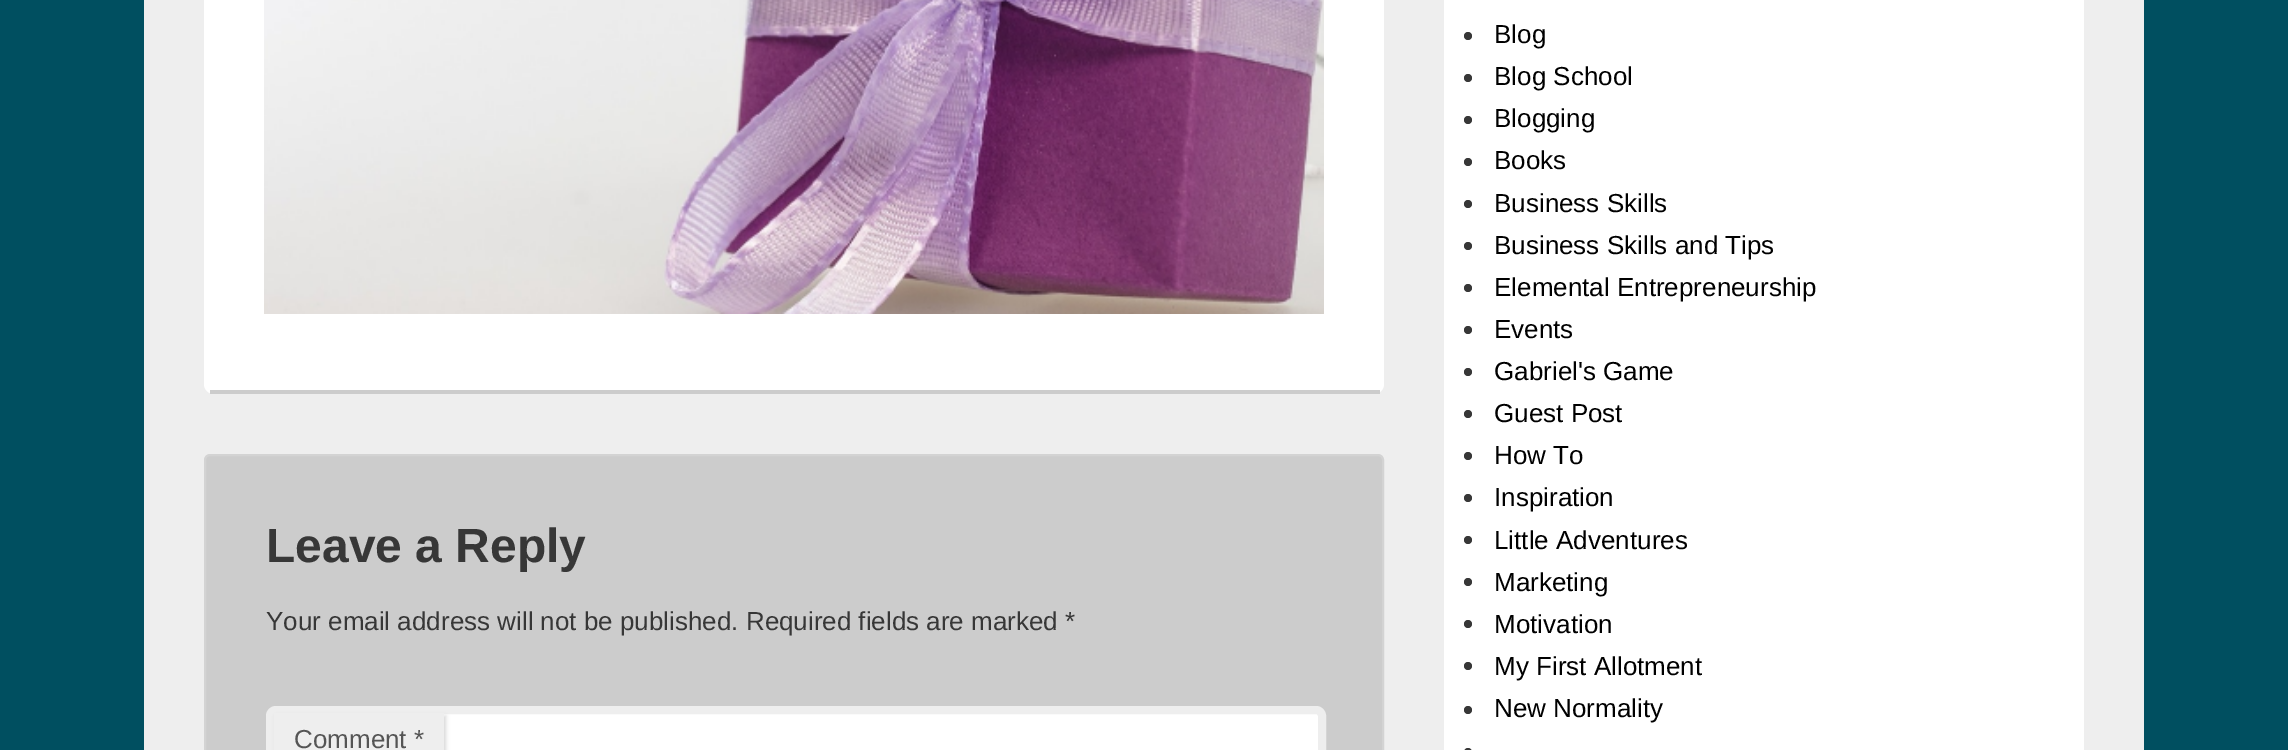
%!PS
<< /PageSize [2288 750] /PageUsesTransparency true >> setpagedevice
/rgb { 3 { 255 div 3 1 roll } repeat setrgbcolor } def
/font { [ exch dup neg 0 0 3 -1 roll 0 0 ] selectfont } def
/text { moveto show } def
/alpha { dup .setfillconstantalpha .setstrokeconstantalpha } def
/circle { newpath 0 360 arc closepath } def
/roundrect { 5 dict begin { /r /h /w /y /x } { exch def } forall
  x r add y moveto x w add y 2 copy h add r arct x w add y h add x 1 index r arct
  x y h add x y r arct x y 2 copy exch w add exch r arct closepath end } def
/shadow { 12 dict begin { /a /b /q /h /w /y /x } { exch def } forall gsave /was 0 def
  9 -2 -9 { dup b mul 4 div /e exch def 1 sub .425 mul 2.718 exch exp 1 add a .99 .min exch div /now exch def
    1 1 now sub 1 was sub div sub alpha /was now def
    w h .min e 2 mul add 0 gt { x e sub y e sub w e 2 mul add h e 2 mul add
      q e add b .6 mul add w h .min 2 div e add .min 0 .max roundrect fill } if } for grestore end } def
/picture { 5 dict begin { /h /w /y /x /name } { exch def } forall
  gsave x y translate w h scale
  w h 8 [w 0 0 h 0 0] name (r) file false 3 colorimage grestore end } def
0 .pushpdf14devicefilter
0 750 translate 1 -1 scale
4 setmiterlimit
0 79 96 rgb
0 0 2288 750 rectfill
238 238 238 rgb
144 0 2000 750 rectfill
255 255 255 rgb
204 -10 1180 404 10 roundrect fill
204 204 204 rgb
210 390 1170 4 rectfill
(img_01.rgb) 264 0 1060 314 picture
205 455 1178 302 5 roundrect gsave fill grestore
211 211 211 rgb
2 setlinewidth
stroke
255 255 255 rgb
270 710 1052 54 6 roundrect gsave fill grestore
238 238 238 rgb
8 setlinewidth
stroke
204 204 204 rgb
276 716 170 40 0 2 0.8 shadow
238 238 238 rgb
274 713 170 37 rectfill
255 255 255 rgb
1444 0 640 750 rectfill
55 55 55 rgb
1468 36 4 circle fill
1468 78 4 circle fill
1468 120 4 circle fill
1468 162 4 circle fill
1468 204 4 circle fill
1468 246 4 circle fill
1468 288 4 circle fill
1468 330 4 circle fill
1468 372 4 circle fill
1468 414 4 circle fill
1468 456 4 circle fill
1468 498 4 circle fill
1468 540 4 circle fill
1468 582 4 circle fill
1468 624 4 circle fill
1468 666 4 circle fill
1468 710 4 circle fill
1464 748 8 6 4 roundrect fill
/LiberationSans-Bold 48 font
(Leave a Reply) 266 562 text
/LiberationSans-Regular 26 font
(Your email address will not be published. Required fields are marked *) 266 630 text
85 85 85 rgb
(Comment *) 294 748 text
0 0 0 rgb
(Blog) 1494 43 text
(Blog School) 1494 85 text
(Blogging) 1494 127 text
(Books) 1494 169 text
(Business Skills) 1494 212 text
(Business Skills and Tips) 1494 254 text
(Elemental Entrepreneurship) 1494 296 text
(Events) 1494 338 text
(Gabriel's Game) 1494 380 text
(Guest Post) 1494 422 text
(How To) 1494 464 text
(Inspiration) 1494 506 text
(Little Adventures) 1494 549 text
(Marketing) 1494 591 text
(Motivation) 1494 633 text
(My First Allotment) 1494 675 text
(New Normality) 1494 717 text
.poppdf14devicefilter showpage
